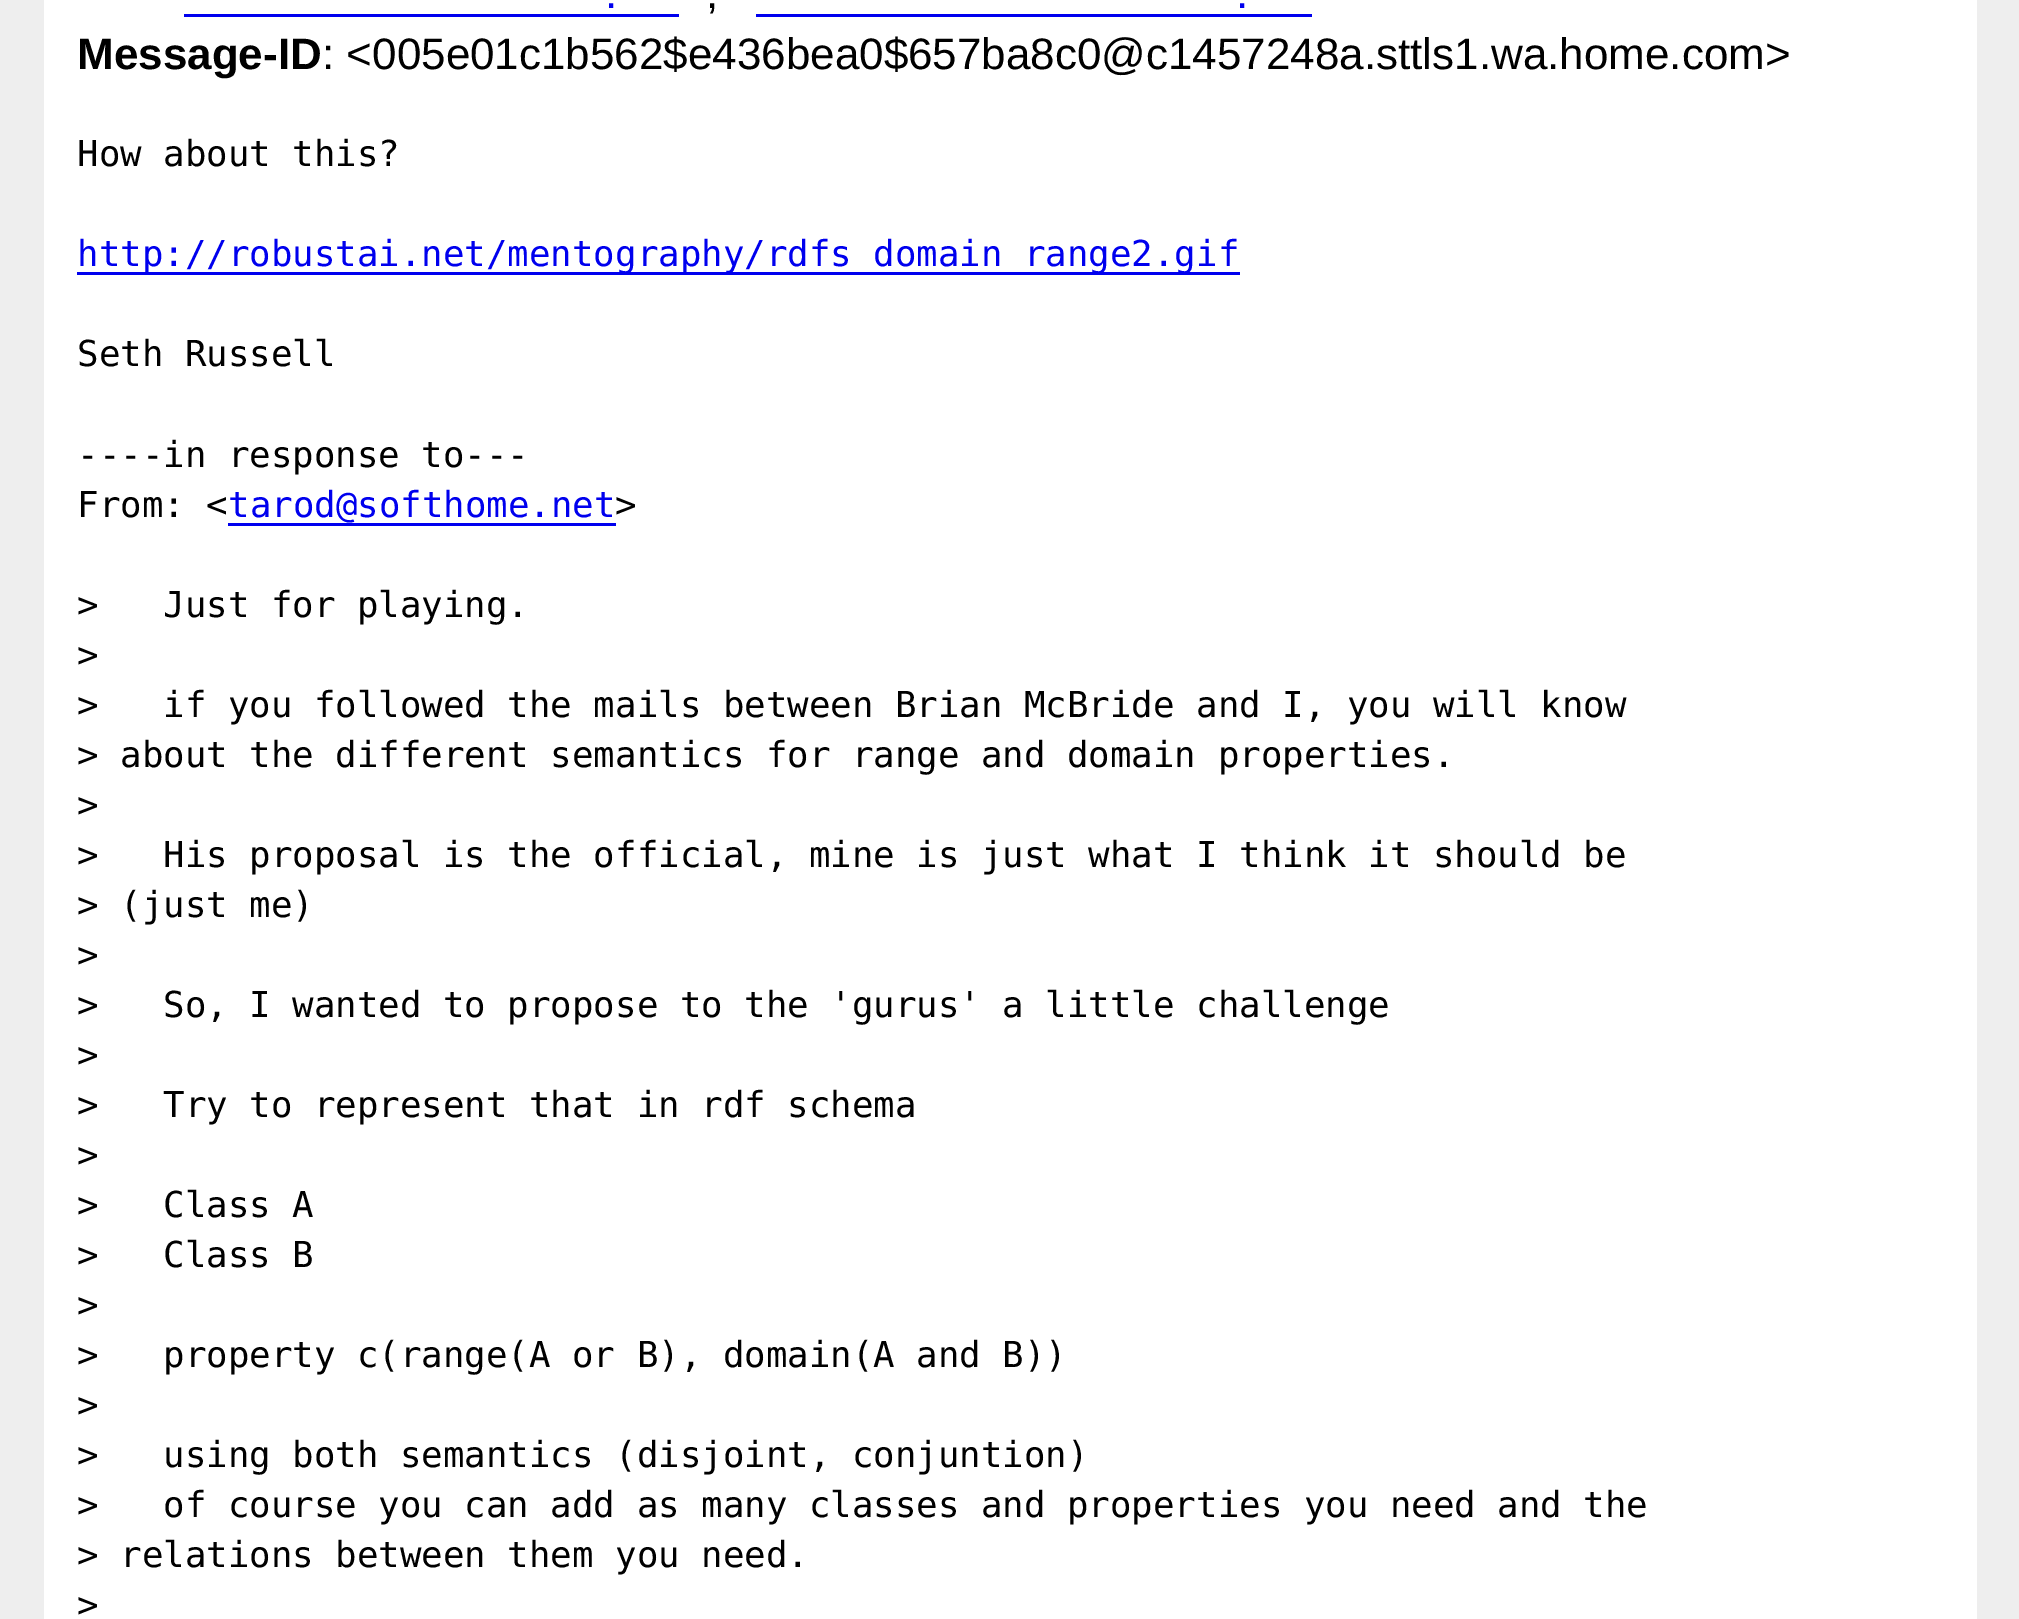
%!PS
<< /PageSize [2019 1619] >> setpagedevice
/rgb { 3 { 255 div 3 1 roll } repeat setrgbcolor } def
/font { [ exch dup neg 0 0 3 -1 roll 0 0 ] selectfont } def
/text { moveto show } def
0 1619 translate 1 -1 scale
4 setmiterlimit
238 238 238 rgb
0 0 2019 1619 rectfill
255 255 255 rgb
44 0 1933 1619 rectfill
0 0 238 rgb
184 14 495 3 rectfill
756 14 556 3 rectfill
77 272 1163 3 rectfill
228 523 388 3 rectfill
/LiberationSans-Regular 44 font
(.) 605 8 text
0 0 0 rgb
(,) 706 8 text
0 0 238 rgb
(.) 1236 8 text
/LiberationSans-Bold 44 font
0 0 0 rgb
(Message-ID) 77 69 text
/LiberationSans-Regular 44 font
(: <005e01c1b562$e436bea0$657ba8c0@c1457248a.sttls1.wa.home.com>) 322 69 text
/DejaVuSansMono-Regular 35.75 font
(How about this?) 77 166 text
0 0 238 rgb
(http://robustai.net/mentography/rdfs_domain_range2.gif) 77 266 text
0 0 0 rgb
(Seth Russell) 77 366 text
(----in response to---) 77 467 text
(From: <) 77 517 text
0 0 238 rgb
(tarod@softhome.net) 228 517 text
0 0 0 rgb
(>) 615 517 text
(>   Just for playing.) 77 617 text
(>) 77 667 text
(>   if you followed the mails between Brian McBride and I, you will know) 77 717 text
(> about the different semantics for range and domain properties.) 77 767 text
(>) 77 817 text
(>   His proposal is the official, mine is just what I think it should be) 77 867 text
(> \(just me\)) 77 917 text
(>) 77 967 text
(>   So, I wanted to propose to the 'gurus' a little challenge) 77 1017 text
(>) 77 1067 text
(>   Try to represent that in rdf schema) 77 1117 text
(>) 77 1167 text
(>   Class A) 77 1217 text
(>   Class B) 77 1267 text
(>) 77 1317 text
(>   property c\(range\(A or B\), domain\(A and B\)\)) 77 1367 text
(>) 77 1417 text
(>   using both semantics \(disjoint, conjuntion\)) 77 1467 text
(>   of course you can add as many classes and properties you need and the) 77 1517 text
(> relations between them you need.) 77 1567 text
(>) 77 1617 text
showpage
